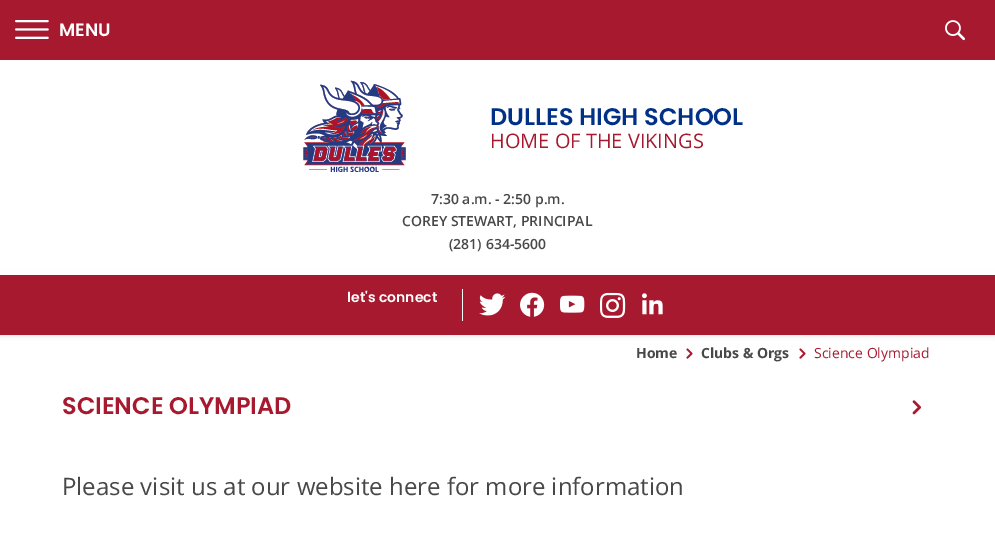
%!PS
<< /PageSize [995 554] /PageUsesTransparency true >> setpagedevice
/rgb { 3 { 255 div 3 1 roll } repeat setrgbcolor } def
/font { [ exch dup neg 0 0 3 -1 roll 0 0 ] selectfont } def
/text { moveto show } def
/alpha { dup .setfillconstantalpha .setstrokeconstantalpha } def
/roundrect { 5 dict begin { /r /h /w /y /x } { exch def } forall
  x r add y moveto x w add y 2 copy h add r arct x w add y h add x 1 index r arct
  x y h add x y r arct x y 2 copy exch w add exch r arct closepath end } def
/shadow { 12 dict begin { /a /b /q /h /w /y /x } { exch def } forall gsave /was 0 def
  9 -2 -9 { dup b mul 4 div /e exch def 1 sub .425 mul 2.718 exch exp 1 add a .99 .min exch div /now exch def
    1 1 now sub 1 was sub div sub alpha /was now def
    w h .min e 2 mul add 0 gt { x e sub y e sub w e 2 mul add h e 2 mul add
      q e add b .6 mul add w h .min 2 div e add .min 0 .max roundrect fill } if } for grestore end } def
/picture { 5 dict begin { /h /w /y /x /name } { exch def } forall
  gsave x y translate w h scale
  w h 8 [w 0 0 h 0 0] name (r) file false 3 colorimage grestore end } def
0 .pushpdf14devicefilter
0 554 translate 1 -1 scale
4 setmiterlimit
255 255 255 rgb
0 0 995 554 rectfill
166 25 46 rgb
0 0 995 60 rectfill
(img_01.rgb) 15 20 34 19 picture
(img_02.rgb) 945 20 20 21 picture
0 0 0 rgb
0 275 995 60 0 3 0.16 shadow
255 255 255 rgb
0 270 995 5 rectfill
(img_03.rgb) 303 80 103 92 picture
166 25 46 rgb
0 275 995 60 rectfill
255 255 255 rgb
462 289 1 32 rectfill
(img_04.rgb) 479 293 27 23 picture
(img_05.rgb) 520 292 25 25 picture
(img_06.rgb) 560 295 25 18 picture
(img_07.rgb) 600 292 26 26 picture
(img_08.rgb) 642 293 21 22 picture
(img_09.rgb) 686 348 7 11 picture
(img_09.rgb) 799 348 7 11 picture
(img_10.rgb) 912 400 9 15 picture
/Poppins-SemiBold 18 font
(MENU) 59 36 text
/Poppins-SemiBold 24 font
0 48 135 rgb
(DULLES HIGH SCHOOL) 490 125 text
/OpenSans-Regular 20 font
166 25 46 rgb
(HOME OF THE VIKINGS) 490 148 text
/OpenSans-SemiBold 14 font
72 72 72 rgb
(7:30 a.m. - 2:50 p.m.) 431 204 text
(COREY STEWART, PRINCIPAL) 402 226 text
(\(281\) 634-5600) 449 249 text
/Poppins-SemiBold 14 font
255 255 255 rgb
(let's connect) 347 302 text
/OpenSans-Bold 14 font
72 72 72 rgb
(Home) 636 358 text
(Clubs & Orgs) 701 358 text
/OpenSans-Regular 14 font
166 25 46 rgb
(Science Olympiad) 814 358 text
/Poppins-SemiBold 24 font
(SCIENCE OLYMPIAD) 62 414 text
/OpenSans-Regular 24 font
72 72 72 rgb
(Please visit us at our website here for more information) 62 495 text
.poppdf14devicefilter showpage
